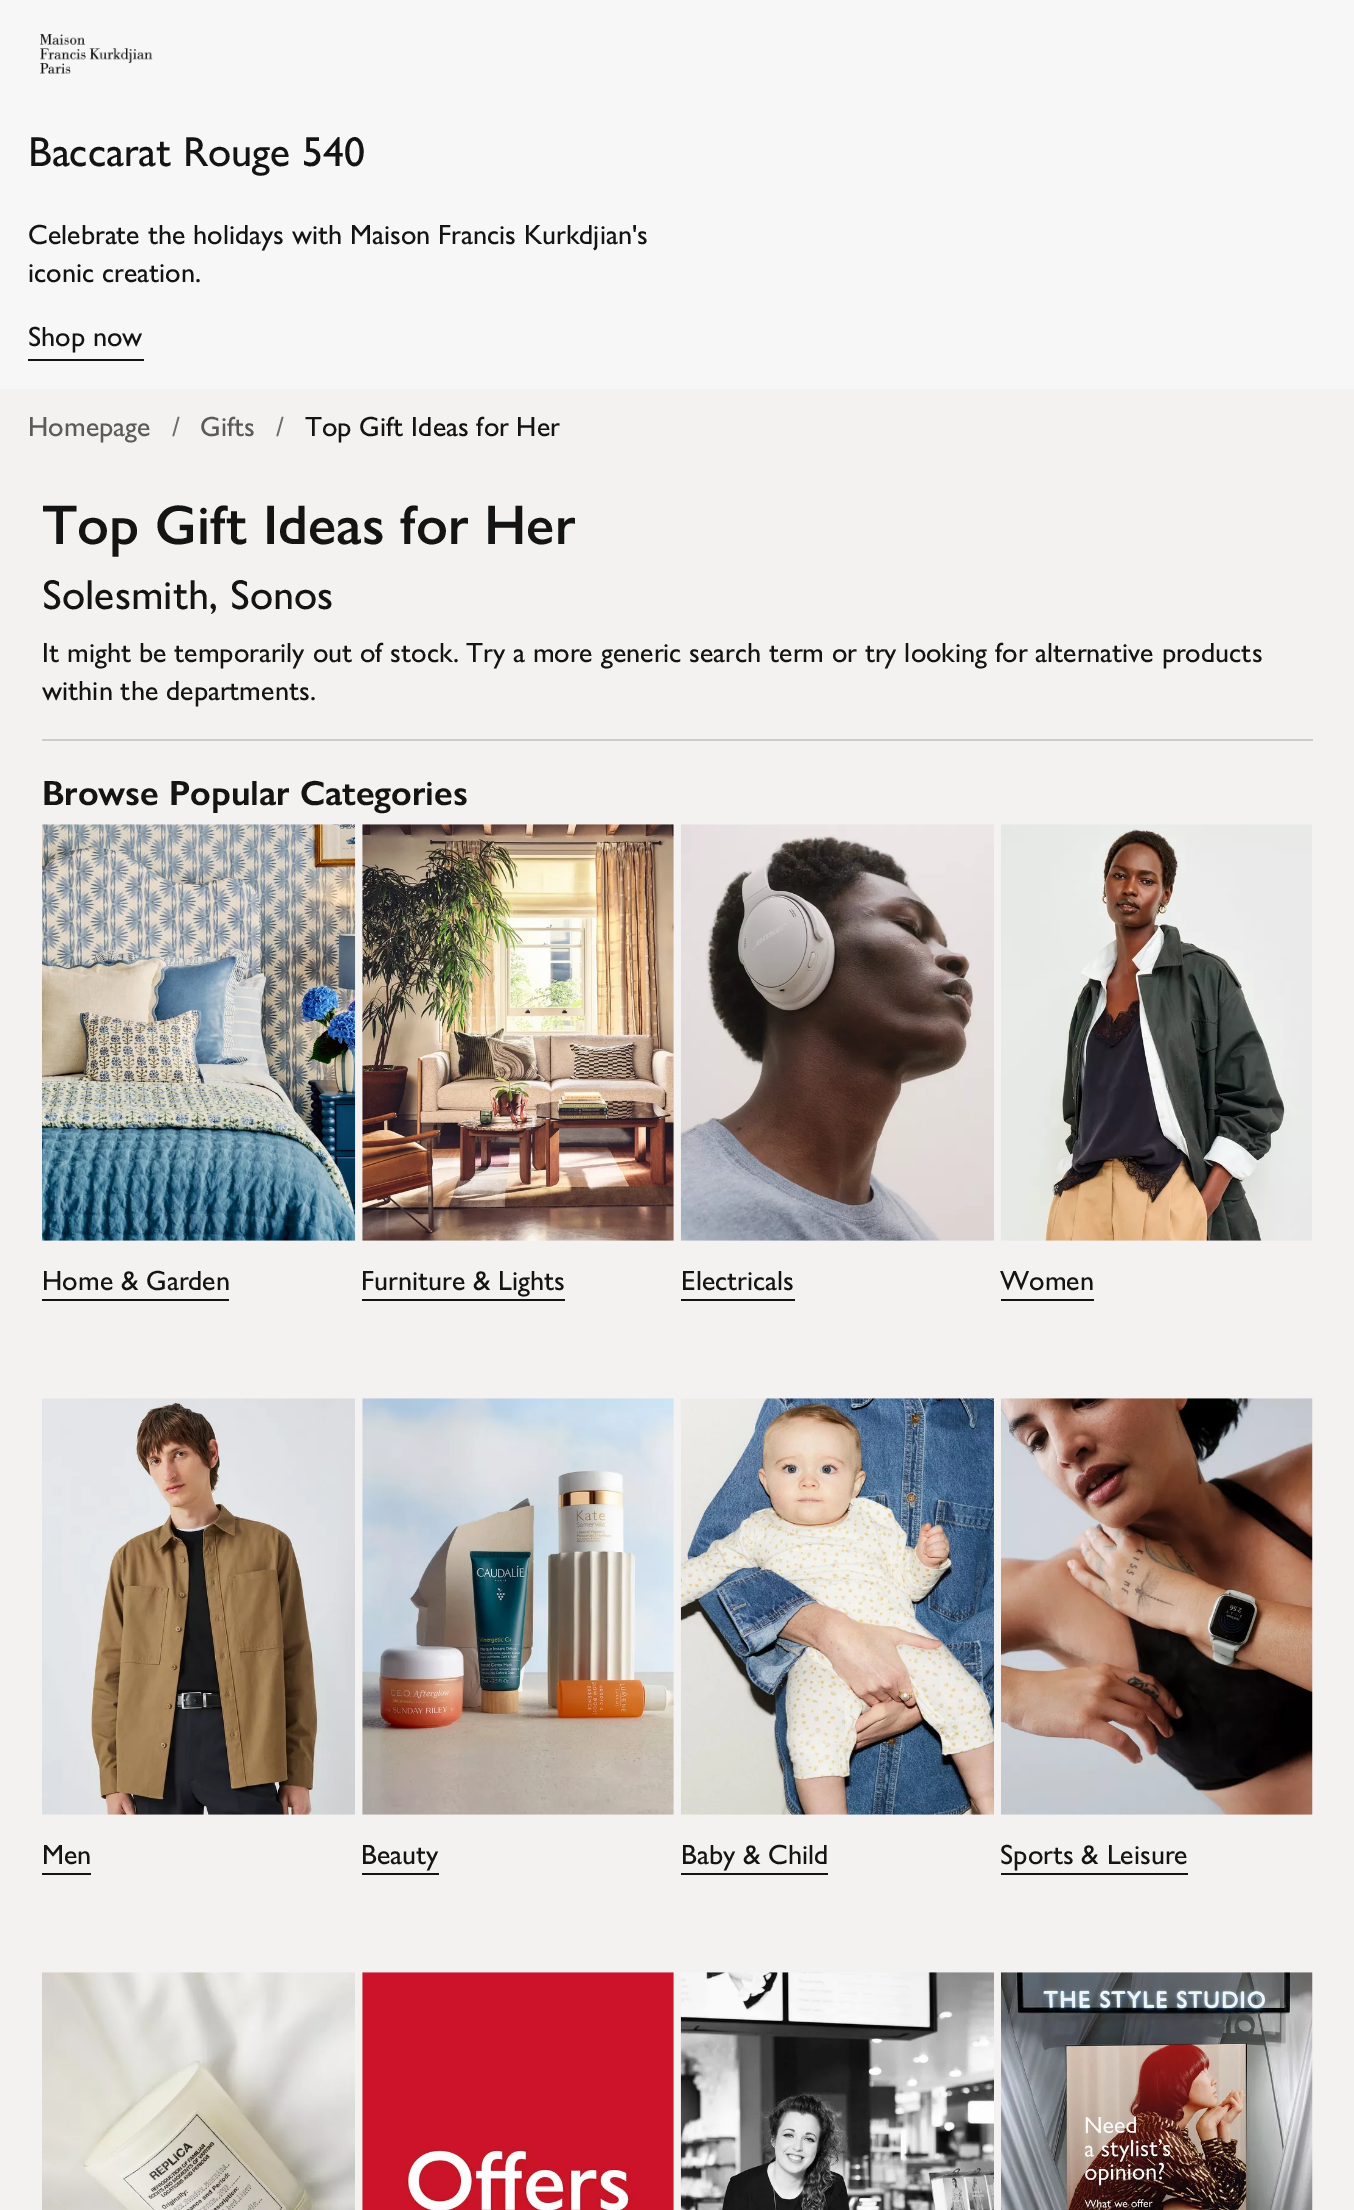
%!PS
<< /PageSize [1354 2210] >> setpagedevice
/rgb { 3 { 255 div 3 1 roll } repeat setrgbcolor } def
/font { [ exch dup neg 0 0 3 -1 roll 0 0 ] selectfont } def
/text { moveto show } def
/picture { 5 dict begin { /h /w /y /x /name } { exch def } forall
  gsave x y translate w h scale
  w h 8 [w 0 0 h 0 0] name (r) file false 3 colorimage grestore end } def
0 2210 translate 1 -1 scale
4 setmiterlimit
243 242 241 rgb
0 0 1354 2210 rectfill
248 247 247 rgb
0 0 1354 389 rectfill
(img_01.rgb) 40 34 113 40 picture
20 20 20 rgb
28 359 116 2 rectfill
204 204 204 rgb
42 739 1271 2 rectfill
(img_02.rgb) 42 824 314 417 picture
20 20 20 rgb
42 1299 187 2 rectfill
(img_03.rgb) 362 824 312 417 picture
362 1299 203 2 rectfill
(img_04.rgb) 680 824 314 417 picture
681 1299 114 2 rectfill
(img_05.rgb) 1001 824 311 417 picture
1001 1299 93 2 rectfill
(img_06.rgb) 42 1398 313 417 picture
42 1873 49 2 rectfill
(img_07.rgb) 362 1398 312 417 picture
362 1873 77 2 rectfill
(img_08.rgb) 680 1398 314 417 picture
681 1873 147 2 rectfill
(img_09.rgb) 1001 1398 312 417 picture
1001 1873 187 2 rectfill
(img_10.rgb) 42 1972 313 238 picture
(img_11.rgb) 362 1972 312 238 picture
(img_12.rgb) 680 1972 314 238 picture
(img_13.rgb) 1001 1972 312 238 picture
/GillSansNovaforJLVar-Regular 42 font
(Baccarat Rouge 540) 28 166 text
/GillSansNovaforJLVar-Regular 28 font
(Celebrate the holidays with Maison Francis Kurkdjian's) 28 244 text
(iconic creation.) 28 282 text
(Shop now) 28 346 text
91 91 91 rgb
(Homepage) 28 436 text
107 107 107 rgb
(/) 172 436 text
91 91 91 rgb
(Gifts) 200 436 text
107 107 107 rgb
(/) 276 436 text
20 20 20 rgb
(Top Gift Ideas for Her) 305 436 text
/GillSansNovaforJLVar-Medium 56 font
(Top Gift Ideas for Her) 42 544 text
/GillSansNovaforJLVar-Regular 42 font
(Solesmith, Sonos) 42 609 text
/GillSansNovaforJLVar-Regular 28 font
(It might be temporarily out of stock. Try a more generic search term or try looking for alternative products) 42 662 text
(within the departments.) 42 700 text
/GillSansNovaforJLVar-SemiBold 35 font
(Browse Popular Categories) 42 805 text
/GillSansNovaforJLVar-Regular 28 font
(Home & Garden) 42 1290 text
(Furniture & Lights) 361 1290 text
(Electricals) 681 1290 text
(Women) 1000 1290 text
(Men) 42 1864 text
(Beauty) 361 1864 text
(Baby & Child) 681 1864 text
(Sports & Leisure) 1000 1864 text
showpage
